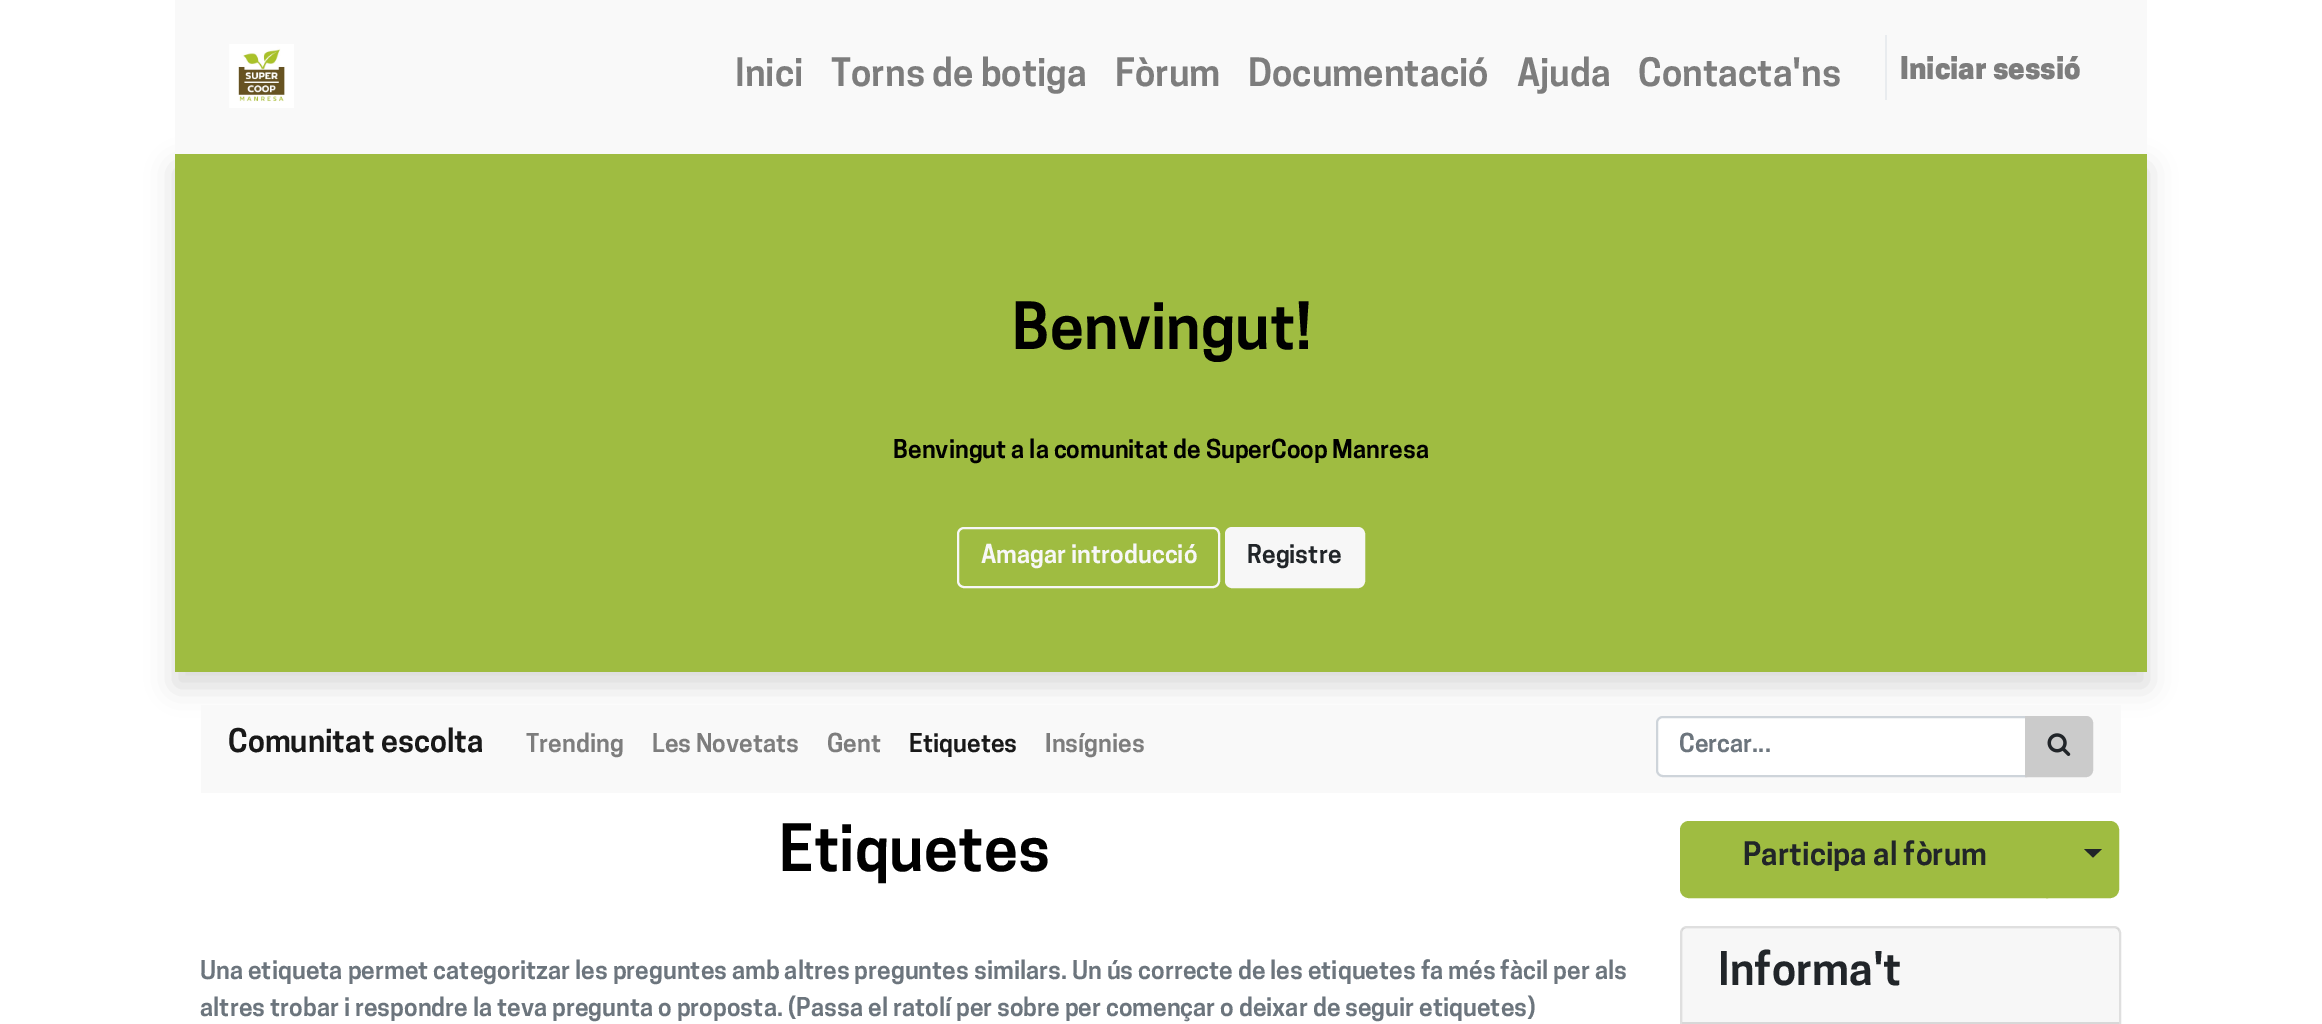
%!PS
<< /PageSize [2322 1024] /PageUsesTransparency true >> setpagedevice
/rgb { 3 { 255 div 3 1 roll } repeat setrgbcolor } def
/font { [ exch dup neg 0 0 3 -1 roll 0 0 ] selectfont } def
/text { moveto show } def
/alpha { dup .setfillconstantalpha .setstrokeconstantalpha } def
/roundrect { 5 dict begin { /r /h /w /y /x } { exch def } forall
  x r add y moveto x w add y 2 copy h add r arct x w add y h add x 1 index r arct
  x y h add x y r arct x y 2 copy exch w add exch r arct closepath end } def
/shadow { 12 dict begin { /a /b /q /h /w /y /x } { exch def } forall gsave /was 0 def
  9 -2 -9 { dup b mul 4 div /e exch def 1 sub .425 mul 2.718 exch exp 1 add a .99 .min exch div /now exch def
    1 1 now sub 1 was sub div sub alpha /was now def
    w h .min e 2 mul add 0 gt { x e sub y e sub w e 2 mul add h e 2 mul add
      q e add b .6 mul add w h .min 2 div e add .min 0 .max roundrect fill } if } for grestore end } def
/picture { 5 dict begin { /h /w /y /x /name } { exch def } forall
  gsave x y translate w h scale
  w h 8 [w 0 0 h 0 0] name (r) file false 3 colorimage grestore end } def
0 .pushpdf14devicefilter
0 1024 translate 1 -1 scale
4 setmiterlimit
255 255 255 rgb
0 0 2322 1024 rectfill
0 0 0 rgb
175 168 1972 518 0 14 0.15 shadow
249 249 249 rgb
175 0 1972 154 rectfill
(img_01.rgb) 229 44 65 64 picture
233 236 239 rgb
1885 35 2 65 rectfill
159 188 65 rgb
175 154 1972 518 rectfill
247 247 247 rgb
2 setlinewidth
958 528 261 59 6 roundrect stroke
1226 528 138 59 6 roundrect gsave fill grestore
stroke
249 249 249 rgb
201 705 1920 88 rectfill
255 255 255 rgb
1663 717 moveto 363 0 rlineto 0 59 rlineto -363 0 rlineto -3.5 0 -6 -2.5 -6 -6 rcurveto 0 -47 rlineto 0 -3.5 2.5 -6 6 -6 rcurveto closepath gsave fill grestore
206 212 218 rgb
stroke
203 203 203 rgb
2026 717 moveto 60 0 rlineto 3.5 0 6 2.5 6 6 rcurveto 0 47 rlineto 0 3.5 -2.5 6 -6 6 rcurveto -60 0 rlineto closepath gsave fill grestore
stroke
(img_02.rgb) 2047 733 24 23 picture
159 188 65 rgb
1689 822 moveto 358 0 rlineto 0 75 rlineto -358 0 rlineto -4.5 0 -8 -3.5 -8 -8 rcurveto 0 -59 rlineto 0 -4.5 3.5 -8 8 -8 rcurveto closepath gsave fill grestore
stroke
2047 822 moveto 63 0 rlineto 4.5 0 8 3.5 8 8 rcurveto 0 59 rlineto 0 4.5 -3.5 8 -8 8 rcurveto -63 0 rlineto closepath gsave fill grestore
stroke
33 37 41 rgb
2084 849 moveto 18 0 rlineto -9 8.5 rlineto closepath fill
223 223 223 rgb
1681 927 439 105 6 roundrect stroke
0.03 alpha
0 0 0 rgb
1682 928 437 94 rectfill
1 alpha
216 216 216 rgb
1682 1022 437 2 rectfill
/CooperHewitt-SemiBold 36.75 font
125 125 125 rgb
(Inici) 735 86 text
(Torns de botiga) 831 86 text
(Fòrum) 1115 86 text
(Documentació) 1248 86 text
(Ajuda) 1517 86 text
(Contacta'ns) 1638 86 text
/CooperHewitt-Black 29.5 font
(Iniciar sessió) 1900 79 text
/CooperHewitt-SemiBold 61.25 font
0 0 0 rgb
(Benvingut!) 1012 349 text
/CooperHewitt-SemiBold 24.5 font
(Benvingut a la comunitat de SuperCoop Manresa) 893 458 text
247 247 247 rgb
(Amagar introducció) 981 563 text
33 37 41 rgb
(Registre) 1247 563 text
/CooperHewitt-SemiBold 30.6 font
25 25 25 rgb
(Comunitat escolta) 228 752 text
/CooperHewitt-SemiBold 24.5 font
125 125 125 rgb
(Trending) 526 752 text
(Les Novetats) 652 752 text
(Gent) 827 752 text
25 25 25 rgb
(Etiquetes) 909 752 text
125 125 125 rgb
(Insígnies) 1045 752 text
108 117 125 rgb
(Cercar...) 1679 752 text
/CooperHewitt-SemiBold 61.25 font
0 0 0 rgb
(Etiquetes) 779 871 text
/CooperHewitt-SemiBold 24.5 font
108 117 125 rgb
(Una etiqueta permet categoritzar les preguntes amb altres preguntes similars. Un ús correcte de les etiquetes fa més fàcil per als) 200 979 text
(altres trobar i respondre la teva pregunta o proposta. \(Passa el ratolí per sobre per començar o deixar de seguir etiquetes\)) 200 1016 text
/CooperHewitt-SemiBold 30.6 font
33 37 41 rgb
(Participa al fòrum) 1743 865 text
/CooperHewitt-SemiBold 43.75 font
(Informa't) 1718 985 text
.poppdf14devicefilter showpage
